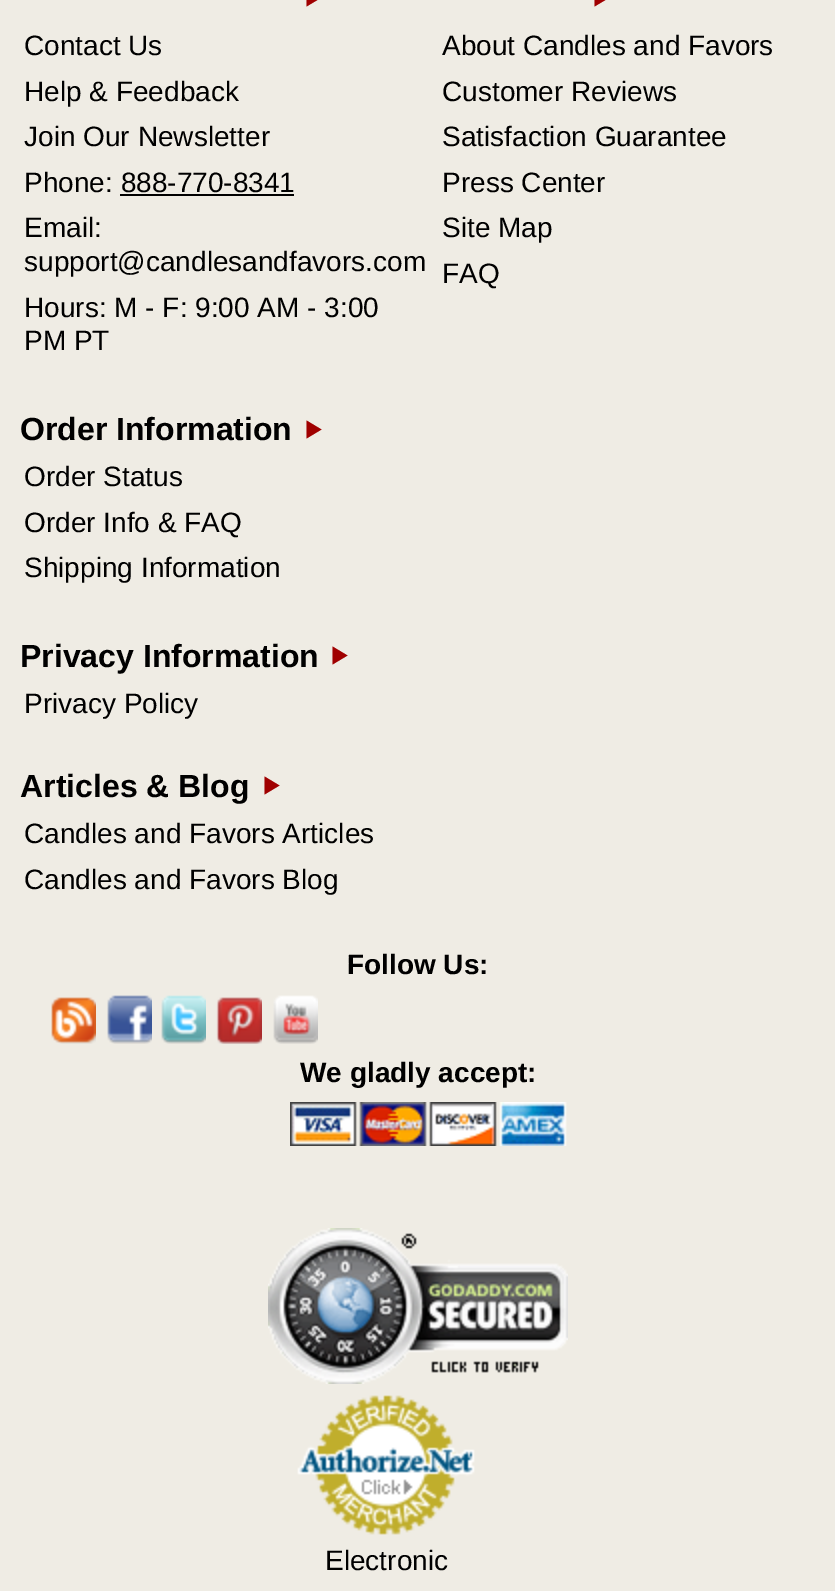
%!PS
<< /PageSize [835 1591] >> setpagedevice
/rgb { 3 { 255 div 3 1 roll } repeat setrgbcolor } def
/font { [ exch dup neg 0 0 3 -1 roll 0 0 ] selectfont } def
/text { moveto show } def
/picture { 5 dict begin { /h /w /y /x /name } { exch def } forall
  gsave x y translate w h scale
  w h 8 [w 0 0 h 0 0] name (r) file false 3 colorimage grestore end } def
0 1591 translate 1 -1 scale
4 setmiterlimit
239 236 228 rgb
0 0 835 1591 rectfill
160 0 0 rgb
306.5 -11.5 moveto 15 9 rlineto -15 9 rlineto closepath fill
0 0 0 rgb
120 194 174 2 rectfill
160 0 0 rgb
594.5 -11.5 moveto 15 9 rlineto -15 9 rlineto closepath fill
306.5 420.5 moveto 15 9 rlineto -15 9 rlineto closepath fill
332.5 646.5 moveto 15 9 rlineto -15 9 rlineto closepath fill
264.5 776.5 moveto 15 9 rlineto -15 9 rlineto closepath fill
(img_01.rgb) 51 997 45 47 picture
(img_02.rgb) 107 995 45 49 picture
(img_03.rgb) 161 995 45 49 picture
(img_04.rgb) 216 997 46 47 picture
(img_05.rgb) 273 995 45 49 picture
(img_06.rgb) 290 1102 277 44 picture
(img_07.rgb) 268 1228 300 156 picture
(img_08.rgb) 297 1395 178 140 picture
/LiberationSans-Regular 28 font
0 0 0 rgb
(Contact Us) 24 55 text
(Help & Feedback) 24 101 text
(Join Our Newsletter) 24 146 text
(Phone: 888-770-8341) 24 192 text
(Email:) 24 237 text
(support@candlesandfavors.com) 24 271 text
(Hours: M - F: 9:00 AM - 3:00) 24 317 text
(PM PT) 24 350 text
(About Candles and Favors) 442 55 text
(Customer Reviews) 442 101 text
(Satisfaction Guarantee) 442 146 text
(Press Center) 442 192 text
(Site Map) 442 237 text
(FAQ) 442 283 text
/LiberationSans-Bold 32 font
(Order Information) 20 440 text
/LiberationSans-Regular 28 font
(Order Status) 24 486 text
(Order Info & FAQ) 24 532 text
(Shipping Information) 24 577 text
/LiberationSans-Bold 32 font
(Privacy Information) 20 667 text
/LiberationSans-Regular 28 font
(Privacy Policy) 24 713 text
/LiberationSans-Bold 32 font
(Articles & Blog) 20 797 text
/LiberationSans-Regular 28 font
(Candles and Favors Articles) 24 843 text
(Candles and Favors Blog) 24 889 text
/LiberationSans-Bold 28 font
(Follow Us:) 347 974 text
(We gladly accept:) 300 1082 text
/LiberationSans-Regular 28 font
(Electronic) 325 1570 text
showpage
